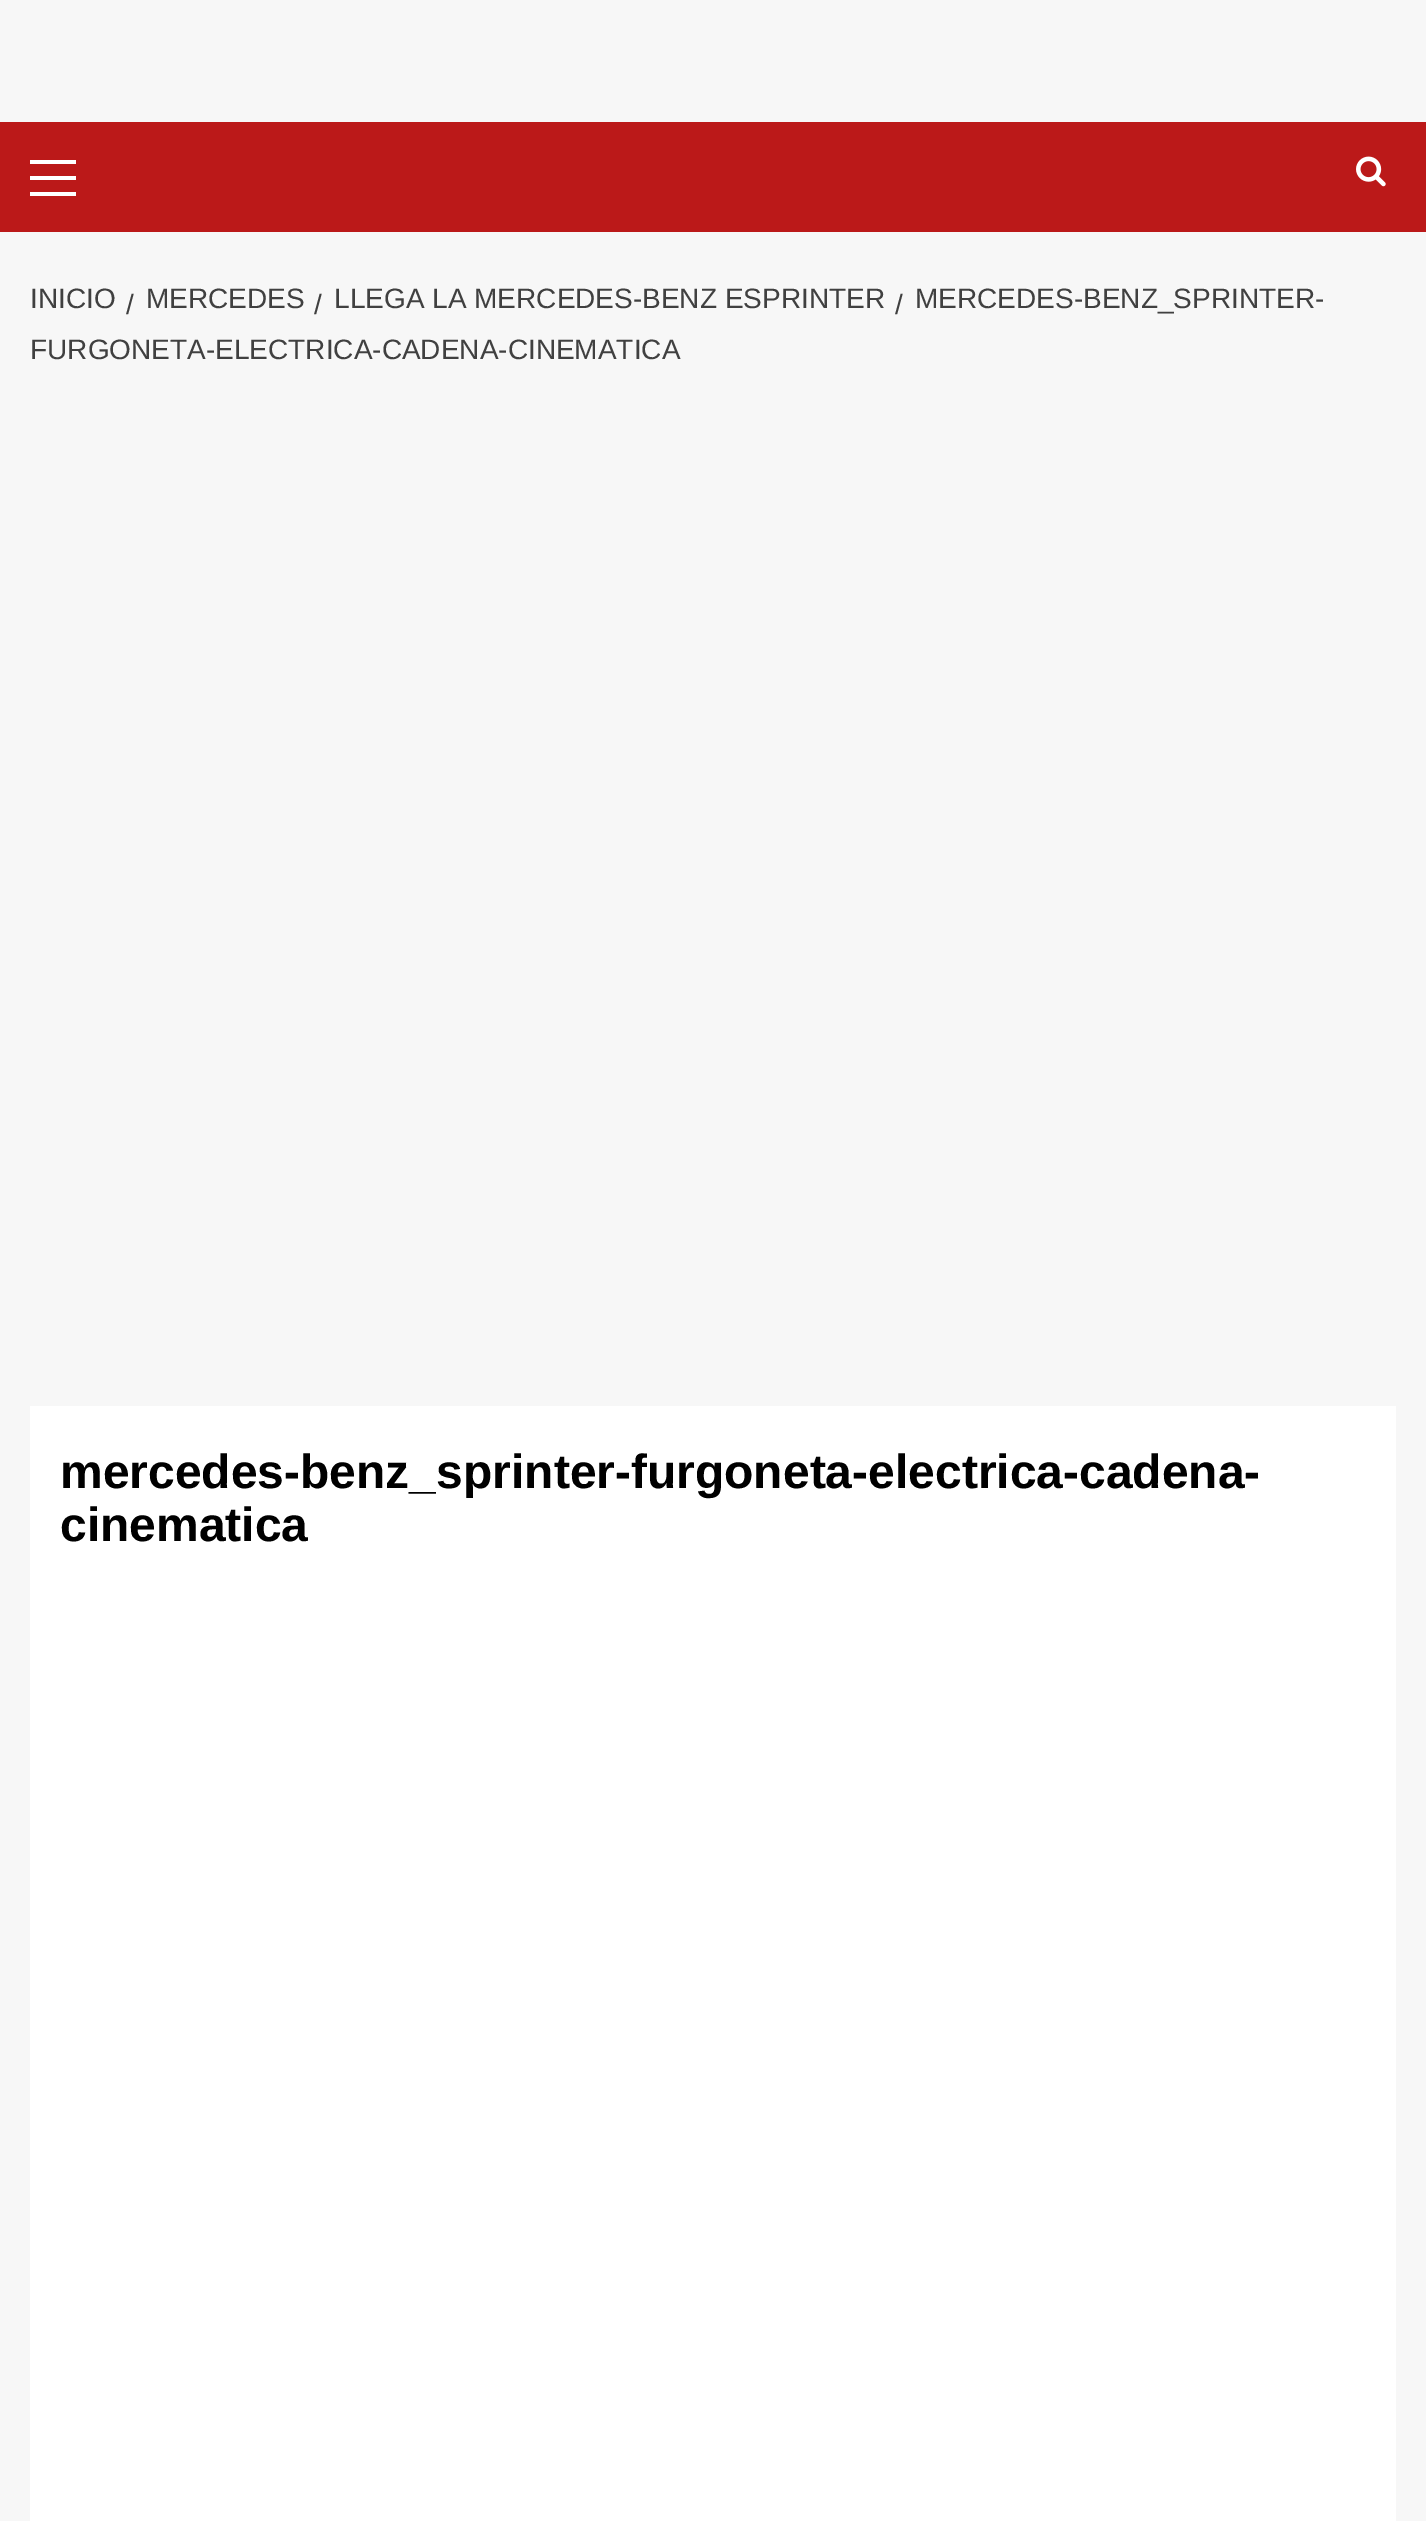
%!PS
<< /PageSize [1426 2521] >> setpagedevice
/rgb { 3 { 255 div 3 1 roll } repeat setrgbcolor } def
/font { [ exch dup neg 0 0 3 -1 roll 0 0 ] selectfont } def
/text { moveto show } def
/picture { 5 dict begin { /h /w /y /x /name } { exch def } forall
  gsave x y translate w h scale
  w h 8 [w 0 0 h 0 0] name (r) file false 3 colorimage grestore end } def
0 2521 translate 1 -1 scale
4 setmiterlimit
247 247 247 rgb
0 0 1426 2521 rectfill
187 25 25 rgb
0 122 1426 110 rectfill
255 255 255 rgb
30 176 46 4 rectfill
30 160 46 4 rectfill
30 192 46 4 rectfill
(img_01.rgb) 1356 156 30 31 picture
30 1406 1366 1115 rectfill
/LiberationSans-Regular 28 font
64 64 64 rgb
(INICIO) 30 308 text
(/) 895 314 text
(MERCEDES-BENZ_SPRINTER-) 915 308 text
(FURGONETA-ELECTRICA-CADENA-CINEMATICA) 30 359 text
(/) 126 314 text
(MERCEDES) 146 308 text
(/) 314 314 text
(LLEGA LA MERCEDES-BENZ ESPRINTER) 334 308 text
/LiberationSans-Bold 48 font
0 0 0 rgb
(mercedes-benz_sprinter-furgoneta-electrica-cadena-) 60 1488 text
(cinematica) 60 1541 text
showpage
